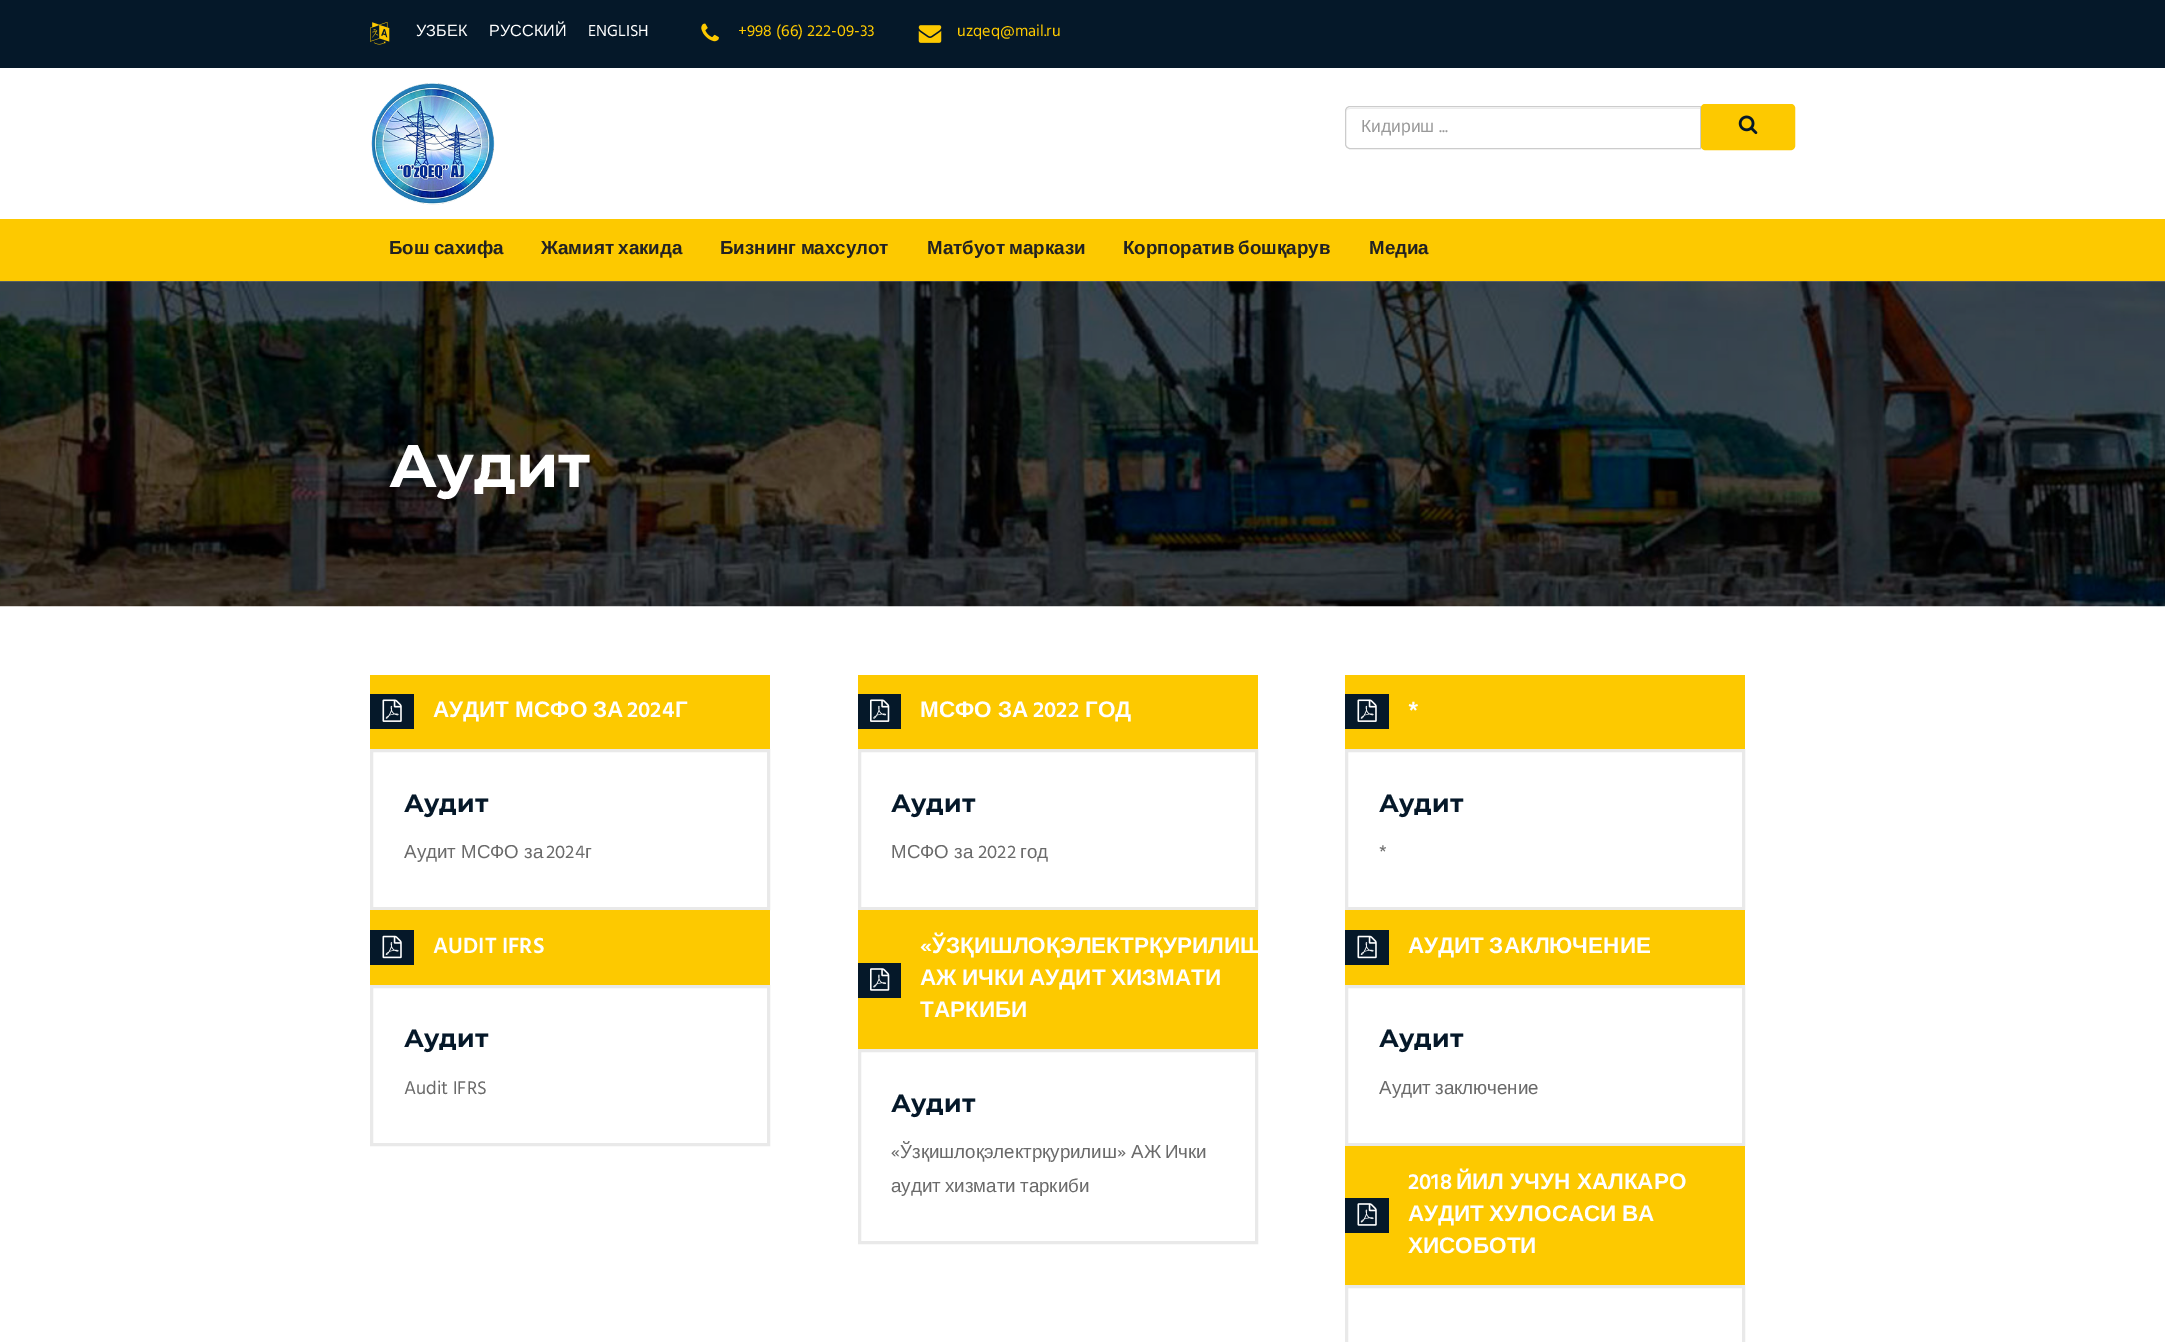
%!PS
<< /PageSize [2165 1342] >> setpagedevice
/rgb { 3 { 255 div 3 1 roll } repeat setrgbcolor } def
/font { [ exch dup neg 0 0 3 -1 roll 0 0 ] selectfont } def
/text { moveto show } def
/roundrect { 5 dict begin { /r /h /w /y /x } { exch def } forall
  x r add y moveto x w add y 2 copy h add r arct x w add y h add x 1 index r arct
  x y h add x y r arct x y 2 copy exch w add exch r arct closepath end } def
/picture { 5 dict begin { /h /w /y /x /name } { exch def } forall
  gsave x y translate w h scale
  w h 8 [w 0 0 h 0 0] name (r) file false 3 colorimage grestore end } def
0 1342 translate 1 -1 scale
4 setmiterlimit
255 255 255 rgb
0 0 2165 1342 rectfill
5 24 41 rgb
0 0 2165 68 rectfill
(img_01.rgb) 370 22 20 23 picture
(img_02.rgb) 701 23 18 19 picture
(img_03.rgb) 918 25 24 18 picture
(img_04.rgb) 371 83 124 122 picture
236 236 236 rgb
1350 109 moveto 350 0 rlineto 0 -1 rlineto -350 0 rlineto -2 0 -4 2 -4 4 rcurveto 0 -2 2 -3 4 -3 rcurveto closepath fill
204 204 204 rgb
1350 106.5 moveto 350.5 0 rlineto 0 42 rlineto -350.5 0 rlineto -2.5 0 -4.5 -2 -4.5 -4.5 rcurveto 0 -33 rlineto 0 -2.5 2 -4.5 4.5 -4.5 rcurveto closepath stroke
253 201 0 rgb
1702.5 105.5 91 43 2.5 roundrect gsave fill grestore
3 setlinewidth
stroke
(img_05.rgb) 1738 115 20 20 picture
0 219 2165 62 rectfill
(img_06.rgb) 0 281 2165 326 picture
370 675 400 74 rectfill
5 24 41 rgb
370 694 44 35 rectfill
(img_07.rgb) 382 699 20 23 picture
233 233 233 rgb
371.5 750.5 397 158 rectstroke
253 201 0 rgb
858 675 400 74 rectfill
5 24 41 rgb
858 694 43 35 rectfill
(img_08.rgb) 870 699 20 23 picture
233 233 233 rgb
859.5 750.5 397 158 rectstroke
253 201 0 rgb
1345 675 400 74 rectfill
5 24 41 rgb
1345 694 44 35 rectfill
(img_07.rgb) 1357 699 20 23 picture
233 233 233 rgb
1346.5 750.5 397 158 rectstroke
253 201 0 rgb
370 910 400 75 rectfill
5 24 41 rgb
370 930 44 35 rectfill
(img_09.rgb) 382 935 20 24 picture
233 233 233 rgb
371.5 986.5 397 158 rectstroke
253 201 0 rgb
858 910 400 139 rectfill
5 24 41 rgb
858 963 43 35 rectfill
(img_10.rgb) 870 968 20 23 picture
233 233 233 rgb
859.5 1050.5 397 192 rectstroke
253 201 0 rgb
1345 910 400 75 rectfill
5 24 41 rgb
1345 930 44 35 rectfill
(img_09.rgb) 1357 935 20 24 picture
233 233 233 rgb
1346.5 986.5 397 158 rectstroke
253 201 0 rgb
1345 1146 400 139 rectfill
5 24 41 rgb
1345 1198 44 35 rectfill
(img_11.rgb) 1357 1203 20 23 picture
233 233 233 rgb
1346.5 1286.5 397 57 rectstroke
/LiberationSans-Regular 16.25 font
255 255 255 rgb
(УЗБЕК) 416 36 text
(РУССКИЙ) 489 36 text
/Hind-Regular 16.25 font
(ENGLISH) 588 36 text
253 201 0 rgb
(+998 \(66\) 222-09-33) 738 36 text
(uzqeq@mail.ru) 957 36 text
/LiberationSans-Regular 17.5 font
153 153 153 rgb
(Кидириш) 1361 132 text
/Hind-Regular 17.5 font
(...) 1439 132 text
/LiberationSans-Bold 18.75 font
34 34 34 rgb
389 254 moveto -1 0 32 (Бош сахифа) widthshow
541 254 moveto -1 0 32 (Жамият хакида) widthshow
720 254 moveto -1 0 32 (Бизнинг махсулот) widthshow
927 254 moveto -1 0 32 (Матбуот маркази) widthshow
1123 254 moveto -1 0 32 (Корпоратив бошқарув) widthshow
(Медиа) 1369 254 text
/Montserrat-Bold 60 font
255 255 255 rgb
(Аудит) 389 487 text
/LiberationSans-Bold 22.5 font
(АУДИТ МСФО ЗА) 433 717 text
/Hind-SemiBold 22.5 font
(2024) 627 717 text
/LiberationSans-Bold 22.5 font
(Г) 675 717 text
/Montserrat-Bold 25 font
5 24 41 rgb
(Аудит) 404 812 text
/LiberationSans-Regular 18.75 font
106 106 106 rgb
(Аудит МСФО за) 404 858 text
/Hind-Regular 18.75 font
(2024) 546 858 text
/LiberationSans-Regular 18.75 font
(г) 585 858 text
/LiberationSans-Bold 22.5 font
255 255 255 rgb
(МСФО ЗА) 920 717 text
/Hind-SemiBold 22.5 font
(2022) 1033 717 text
/LiberationSans-Bold 22.5 font
(ГОД) 1085 717 text
/Montserrat-Bold 25 font
5 24 41 rgb
(Аудит) 891 812 text
/LiberationSans-Regular 18.75 font
106 106 106 rgb
(МСФО за) 891 858 text
/Hind-Regular 18.75 font
(2022) 978 858 text
/LiberationSans-Regular 18.75 font
(год) 1020 858 text
/Hind-SemiBold 22.5 font
255 255 255 rgb
(*) 1408 717 text
/Montserrat-Bold 25 font
5 24 41 rgb
(Аудит) 1379 812 text
/Hind-Regular 18.75 font
106 106 106 rgb
(*) 1379 858 text
/Hind-SemiBold 22.5 font
255 255 255 rgb
(AUDIT IFRS) 433 953 text
/Montserrat-Bold 25 font
5 24 41 rgb
(Аудит) 404 1047 text
/Hind-Regular 18.75 font
106 106 106 rgb
(Audit IFRS) 404 1094 text
/Hind-SemiBold 22.5 font
255 255 255 rgb
(«) 920 953 text
/LiberationSans-Bold 22.5 font
(ЎЗҚИШЛОҚЭЛЕКТРҚУРИЛИШ) 932 953 text
(АЖ) 920 985 text
962 985 moveto -1 0 32 (ИЧКИ АУДИТ ХИЗМАТИ) widthshow
(ТАРКИБИ) 920 1017 text
/Montserrat-Bold 25 font
5 24 41 rgb
(Аудит) 891 1112 text
/Hind-Regular 18.75 font
106 106 106 rgb
(«) 891 1158 text
/LiberationSans-Regular 18.75 font
(Ўзқишлоқэлектрқурилиш) 900 1158 text
/Hind-Regular 18.75 font
(») 1117 1158 text
/LiberationSans-Regular 18.75 font
(АЖ) 1131 1158 text
(Ички) 1165 1158 text
891 1192 moveto -1 0 32 (аудит хизмати таркиби) widthshow
/LiberationSans-Bold 22.5 font
255 255 255 rgb
1408 953 moveto -1 0 32 (АУДИТ ЗАКЛЮЧЕНИЕ) widthshow
/Montserrat-Bold 25 font
5 24 41 rgb
(Аудит) 1379 1047 text
/LiberationSans-Regular 18.75 font
106 106 106 rgb
1379 1094 moveto -1 0 32 (Аудит заключение) widthshow
/Hind-SemiBold 22.5 font
255 255 255 rgb
(2018) 1408 1189 text
/LiberationSans-Bold 22.5 font
(ЙИЛ УЧУН ХАЛКАРО) 1456 1189 text
1408 1221 moveto -1 0 32 (АУДИТ ХУЛОСАСИ ВА) widthshow
(ХИСОБОТИ) 1408 1253 text
showpage
